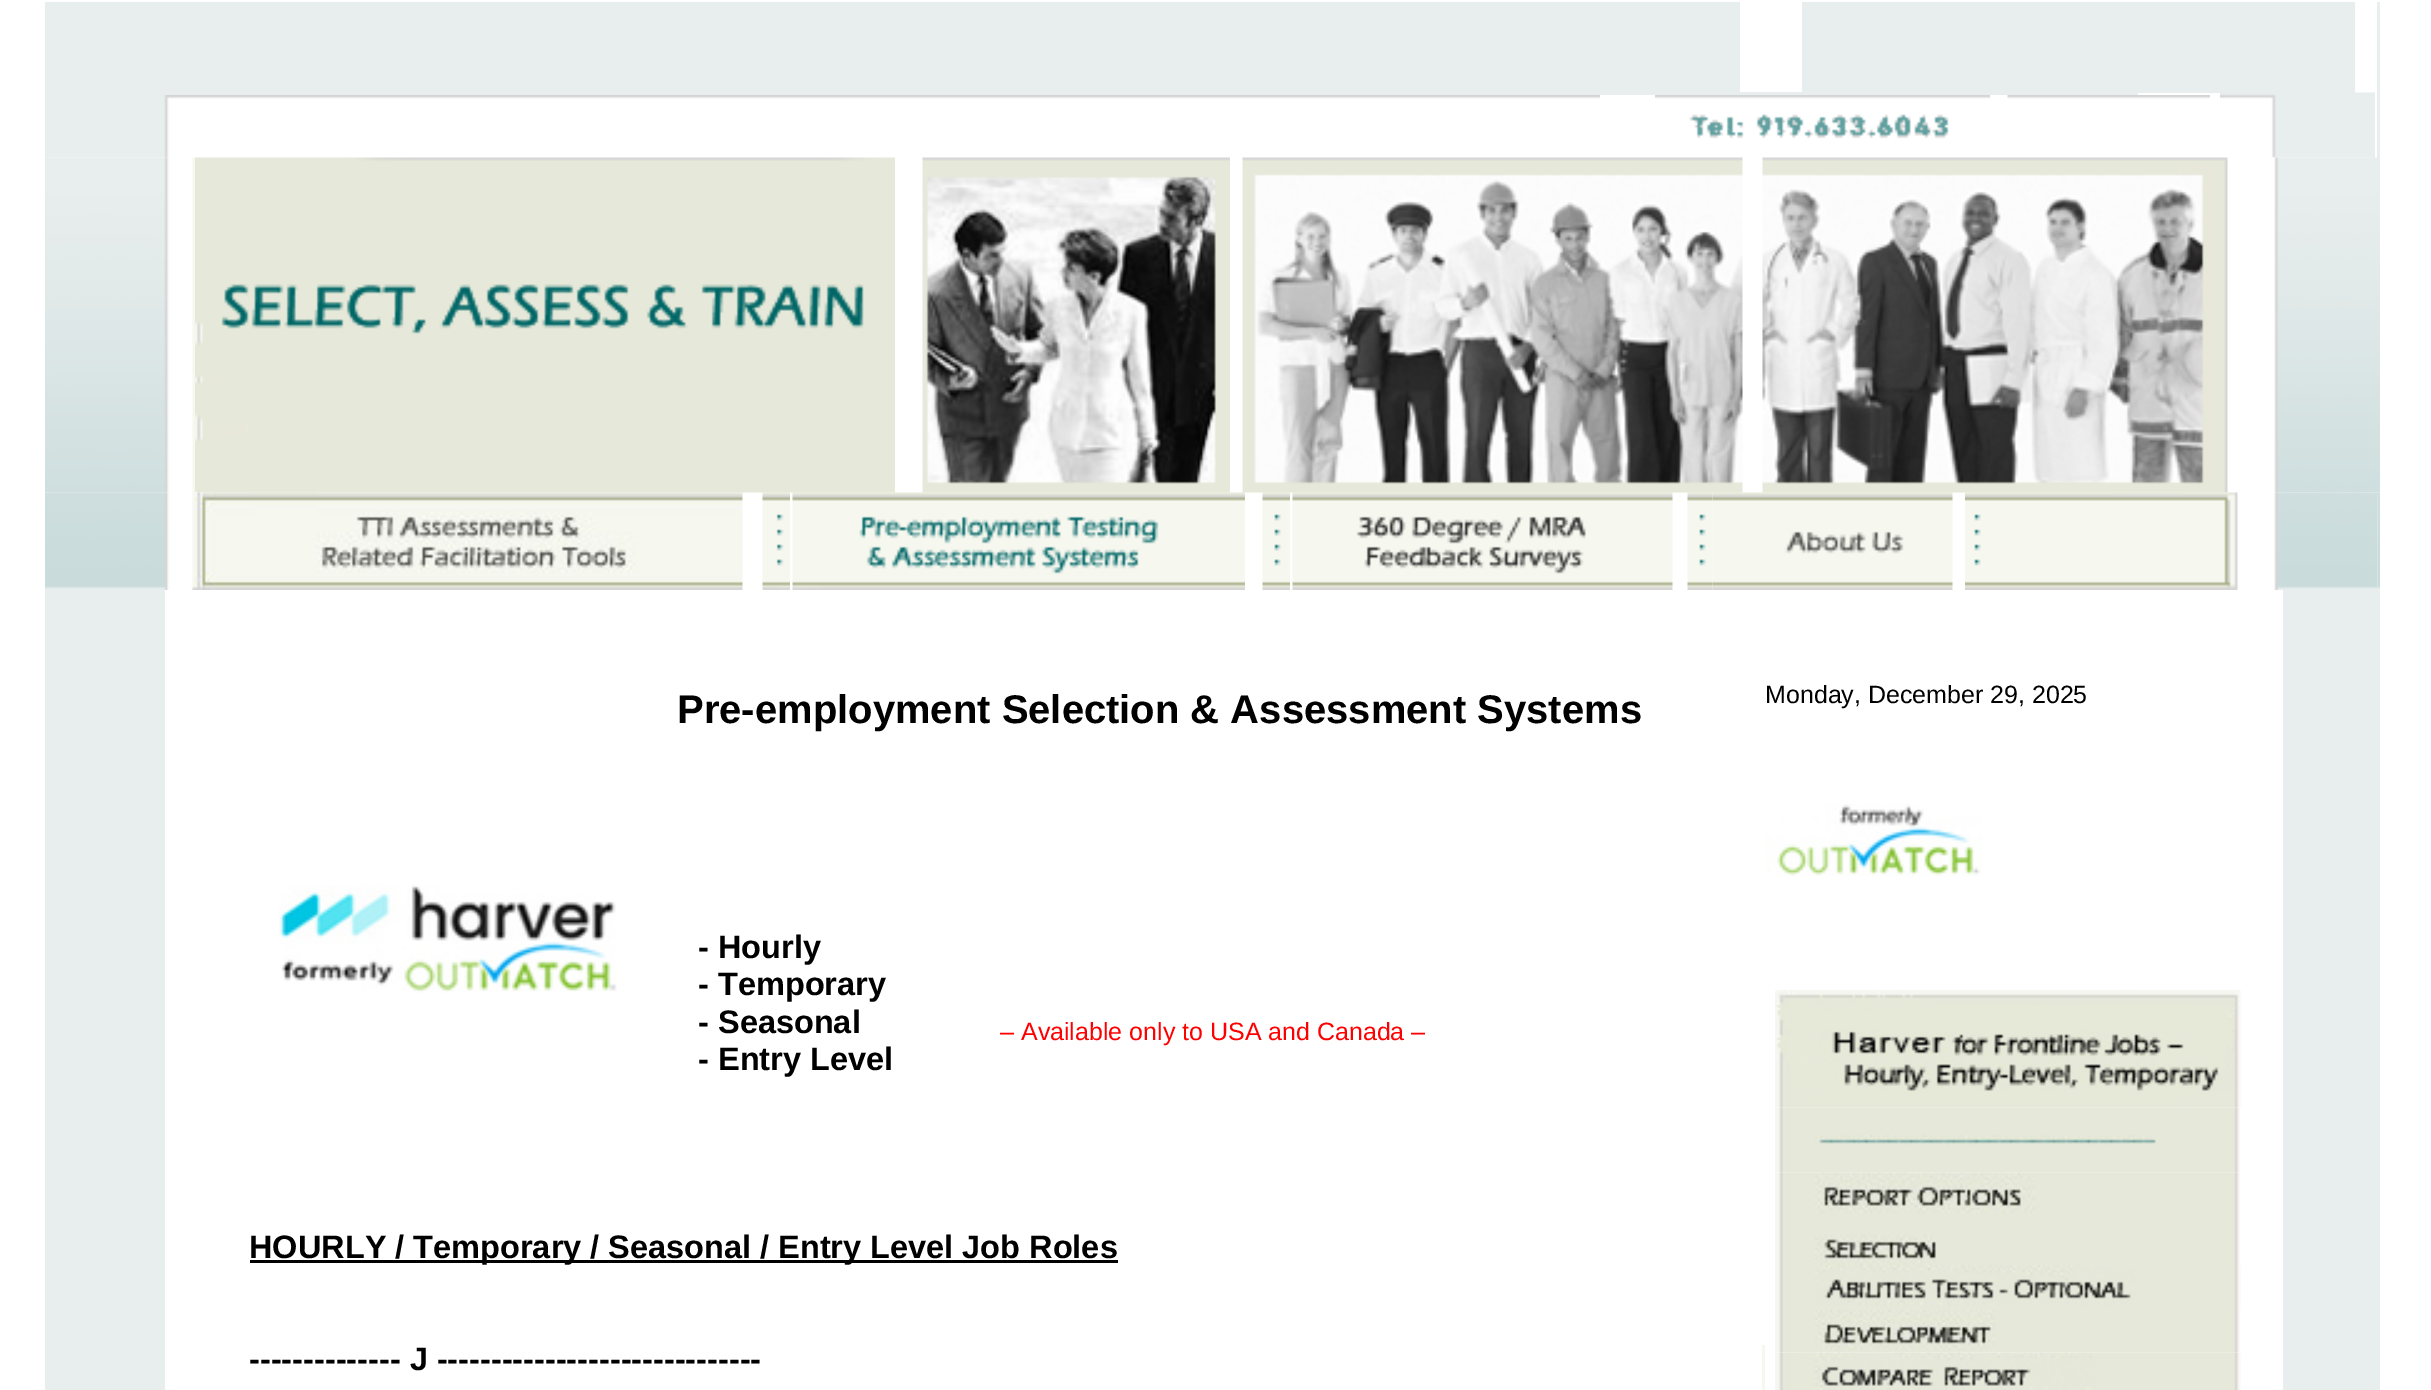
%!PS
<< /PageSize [2431 1390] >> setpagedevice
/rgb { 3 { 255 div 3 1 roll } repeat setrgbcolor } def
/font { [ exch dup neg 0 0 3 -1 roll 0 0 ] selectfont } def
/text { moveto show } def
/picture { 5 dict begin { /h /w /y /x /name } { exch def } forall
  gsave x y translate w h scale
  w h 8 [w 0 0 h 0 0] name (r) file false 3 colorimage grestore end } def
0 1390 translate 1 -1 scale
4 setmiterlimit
255 255 255 rgb
0 0 2431 1390 rectfill
232 237 237 rgb
45 2 1695 90 rectfill
1802 2 553 91 rectfill
2377 2 3 156 rectfill
45 92 2093 3 rectfill
(img_01.rgb) 2220 92 155 66 picture
(img_02.rgb) 45 95 1555 63 picture
(img_03.rgb) 1655 95 335 44 picture
(img_04.rgb) 2007 95 203 4 picture
(img_05.rgb) 45 157 150 336 picture
(img_06.rgb) 195 157 700 336 picture
(img_07.rgb) 922 157 308 336 picture
(img_08.rgb) 1242 157 501 336 picture
(img_09.rgb) 1762 157 466 336 picture
(img_10.rgb) 2272 157 108 336 picture
(img_11.rgb) 45 492 150 98 picture
(img_12.rgb) 195 492 548 98 picture
(img_13.rgb) 762 492 28 98 picture
(img_14.rgb) 792 492 453 98 picture
(img_15.rgb) 1262 492 28 98 picture
(img_16.rgb) 1292 492 381 98 picture
(img_17.rgb) 1687 492 26 98 picture
(img_18.rgb) 1712 492 241 98 picture
(img_19.rgb) 1965 492 25 98 picture
(img_20.rgb) 1990 492 248 98 picture
(img_21.rgb) 2274 492 106 3 picture
(img_22.rgb) 2274 495 104 95 picture
(img_23.rgb) 2377 495 3 95 picture
45 590 120 800 rectfill
(img_24.rgb) 279 885 338 108 picture
0 0 0 rgb
250 1260 868 3 rectfill
246 247 239 rgb
1762 1345 3 45 rectfill
(img_25.rgb) 1765 804 217 72 picture
(img_26.rgb) 1775 990 467 118 picture
(img_27.rgb) 1775 1107 465 28 picture
(img_28.rgb) 1775 1135 465 10 picture
(img_29.rgb) 1775 1145 465 28 picture
(img_30.rgb) 1775 1172 465 43 picture
(img_31.rgb) 1775 1215 465 50 picture
(img_32.rgb) 1775 1265 466 45 picture
(img_33.rgb) 1775 1310 465 43 picture
(img_34.rgb) 1775 1352 466 38 picture
232 237 237 rgb
2283 590 97 800 rectfill
/LiberationSans-Bold 40 font
0 0 0 rgb
(Pre-employment Selection & Assessment Systems) 677 723 text
/LiberationSans-Bold 32.5 font
(- Hourly) 698 958 text
(- Temporary) 698 995 text
(- Seasonal) 698 1033 text
(- Entry Level) 698 1070 text
/LiberationSans-Regular 25 font
255 0 0 rgb
(– Available only to USA and Canada –) 1000 1040 text
/LiberationSans-Bold 32.5 font
0 0 0 rgb
(HOURLY / Temporary / Seasonal / Entry Level Job Roles) 249 1258 text
(-------------- J ------------------------------) 249 1370 text
/LiberationSans-Regular 25 font
(Monday, December 29, 2025) 1765 703 text
showpage
